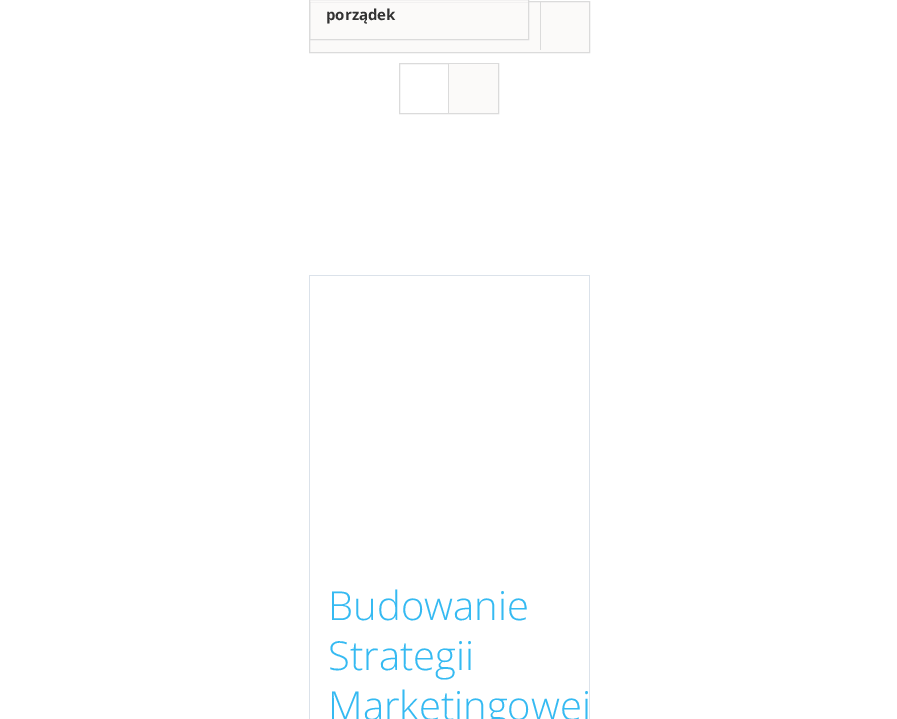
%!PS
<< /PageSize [897 719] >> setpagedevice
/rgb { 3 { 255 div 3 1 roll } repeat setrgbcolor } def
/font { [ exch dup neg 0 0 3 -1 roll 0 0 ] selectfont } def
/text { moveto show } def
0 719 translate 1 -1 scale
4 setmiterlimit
255 255 255 rgb
0 0 897 719 rectfill
251 250 249 rgb
309.5 1.5 moveto 280 0 rlineto 0 51 rlineto -280 0 rlineto closepath gsave fill grestore
219 219 219 rgb
stroke
540 1 1 49 rectfill
251 250 249 rgb
310 0 218 2 rectfill
219 219 219 rgb
309.5 -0.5 219 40 rectstroke
399.5 63.5 99 50 rectstroke
448 64 1 49 rectfill
251 250 249 rgb
449 64 49 49 rectfill
219 226 234 rgb
309 275 281 1 rectfill
589 275 1 444 rectfill
309 275 1 444 rectfill
/OpenSans-Bold 15 font
51 51 51 rgb
(porządek) 326 20 text
/OpenSans-Light 40 font
53 186 242 rgb
(Budowanie) 328 620 text
(Strategii) 328 670 text
(Marketingowej) 328 720 text
showpage
